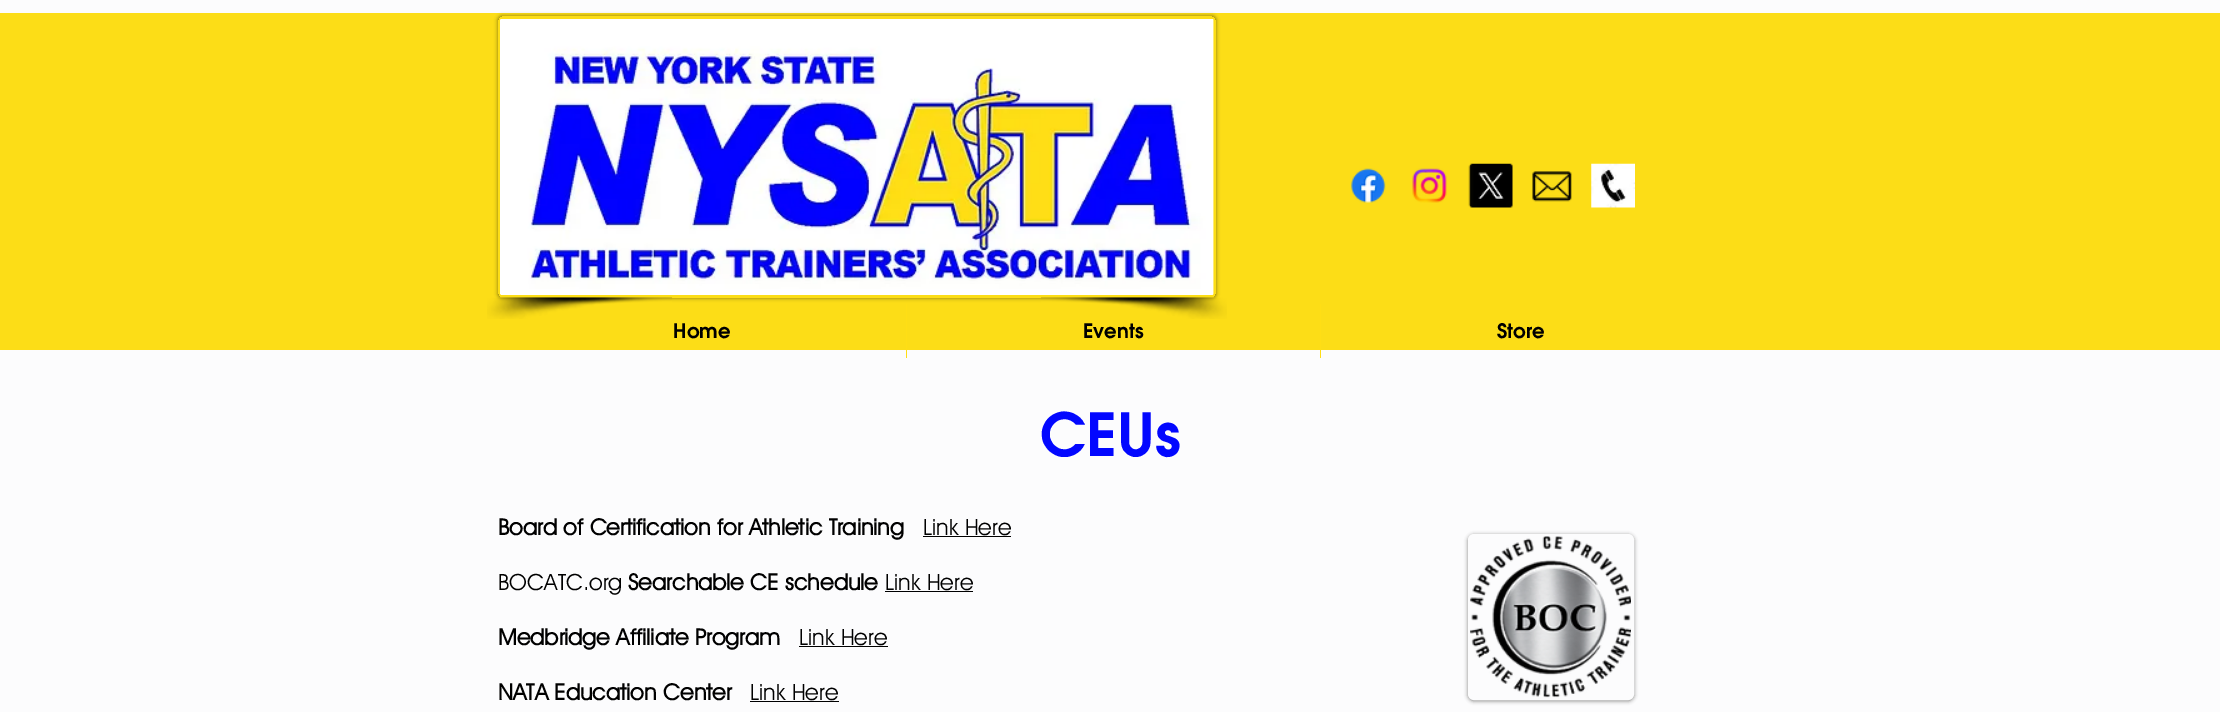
%!PS
<< /PageSize [2220 712] /PageUsesTransparency true >> setpagedevice
/rgb { 3 { 255 div 3 1 roll } repeat setrgbcolor } def
/font { [ exch dup neg 0 0 3 -1 roll 0 0 ] selectfont } def
/text { moveto show } def
/alpha { dup .setfillconstantalpha .setstrokeconstantalpha } def
/roundrect { 5 dict begin { /r /h /w /y /x } { exch def } forall
  x r add y moveto x w add y 2 copy h add r arct x w add y h add x 1 index r arct
  x y h add x y r arct x y 2 copy exch w add exch r arct closepath end } def
/shadow { 12 dict begin { /a /b /q /h /w /y /x } { exch def } forall gsave /was 0 def
  9 -2 -9 { dup b mul 4 div /e exch def 1 sub .425 mul 2.718 exch exp 1 add a .99 .min exch div /now exch def
    1 1 now sub 1 was sub div sub alpha /was now def
    w h .min e 2 mul add 0 gt { x e sub y e sub w e 2 mul add h e 2 mul add
      q e add b .6 mul add w h .min 2 div e add .min 0 .max roundrect fill } if } for grestore end } def
/picture { 5 dict begin { /h /w /y /x /name } { exch def } forall
  gsave x y translate w h scale
  w h 8 [w 0 0 h 0 0] name (r) file false 3 colorimage grestore end } def
0 .pushpdf14devicefilter
0 712 translate 1 -1 scale
4 setmiterlimit
252 252 253 rgb
0 0 2220 712 rectfill
252 221 23 rgb
0 13 2220 337 rectfill
gsave
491 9 moveto 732 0 rlineto 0 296 rlineto -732 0 rlineto closepath 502 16 moveto 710 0 rlineto 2 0 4 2 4 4 rcurveto 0 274 rlineto 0 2 -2 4 -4 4 rcurveto -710 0 rlineto -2 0 -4 -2 -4 -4 rcurveto 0 -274 rlineto 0 -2 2 -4 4 -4 rcurveto closepath eoclip newpath
0 0 0 rgb
498 16 718 282 4 2 0.5 shadow
grestore
(img_01.rgb) 500 19 714 276 picture
(img_02.rgb) 487 297 185 22 picture
(img_03.rgb) 1041 297 186 22 picture
(img_04.rgb) 1351 168 35 35 picture
(img_05.rgb) 1412 168 35 35 picture
(img_06.rgb) 1468 163 45 45 picture
(img_07.rgb) 1532 171 40 31 picture
(img_08.rgb) 1591 163 44 45 picture
255 222 21 rgb
906 304 1 54 rectfill
1320 304 1 54 rectfill
0 0 0 rgb
923 536 88 1 rectfill
885 591 88 1 rectfill
799 646 89 1 rectfill
750 701 89 1 rectfill
1468 535 166 166 6 2 0.5 shadow
252 252 253 rgb
1469.5 535.5 163 163 4.5 roundrect gsave fill grestore
3 setlinewidth
stroke
(img_09.rgb) 1470 536 161 162 picture
/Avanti-Bold 21 font
0 0 0 rgb
(Home) 673 338 text
(Events) 1083 338 text
(Store) 1497 338 text
/Avanti-Bold 62.5 font
2 7 255 rgb
(CEUs) 1040 456 text
/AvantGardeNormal-Bold 22.5 font
0 0 0 rgb
(Board of Certification for Athletic Training) 498 535 text
/AvantGardeNormal-Regular 22.5 font
(Link Here) 923 535 text
(BOCATC.org) 498 590 text
/AvantGardeNormal-Bold 22.5 font
(Searchable CE schedule) 628 590 text
/AvantGardeNormal-Regular 22.5 font
(Link Here) 885 590 text
/AvantGardeNormal-Bold 22.5 font
(Medbridge Affiliate Program) 498 645 text
/AvantGardeNormal-Regular 22.5 font
(Link Here) 799 645 text
/AvantGardeNormal-Bold 22.5 font
(NATA Education Center) 498 700 text
/AvantGardeNormal-Regular 22.5 font
(Link Here) 750 700 text
.poppdf14devicefilter showpage
